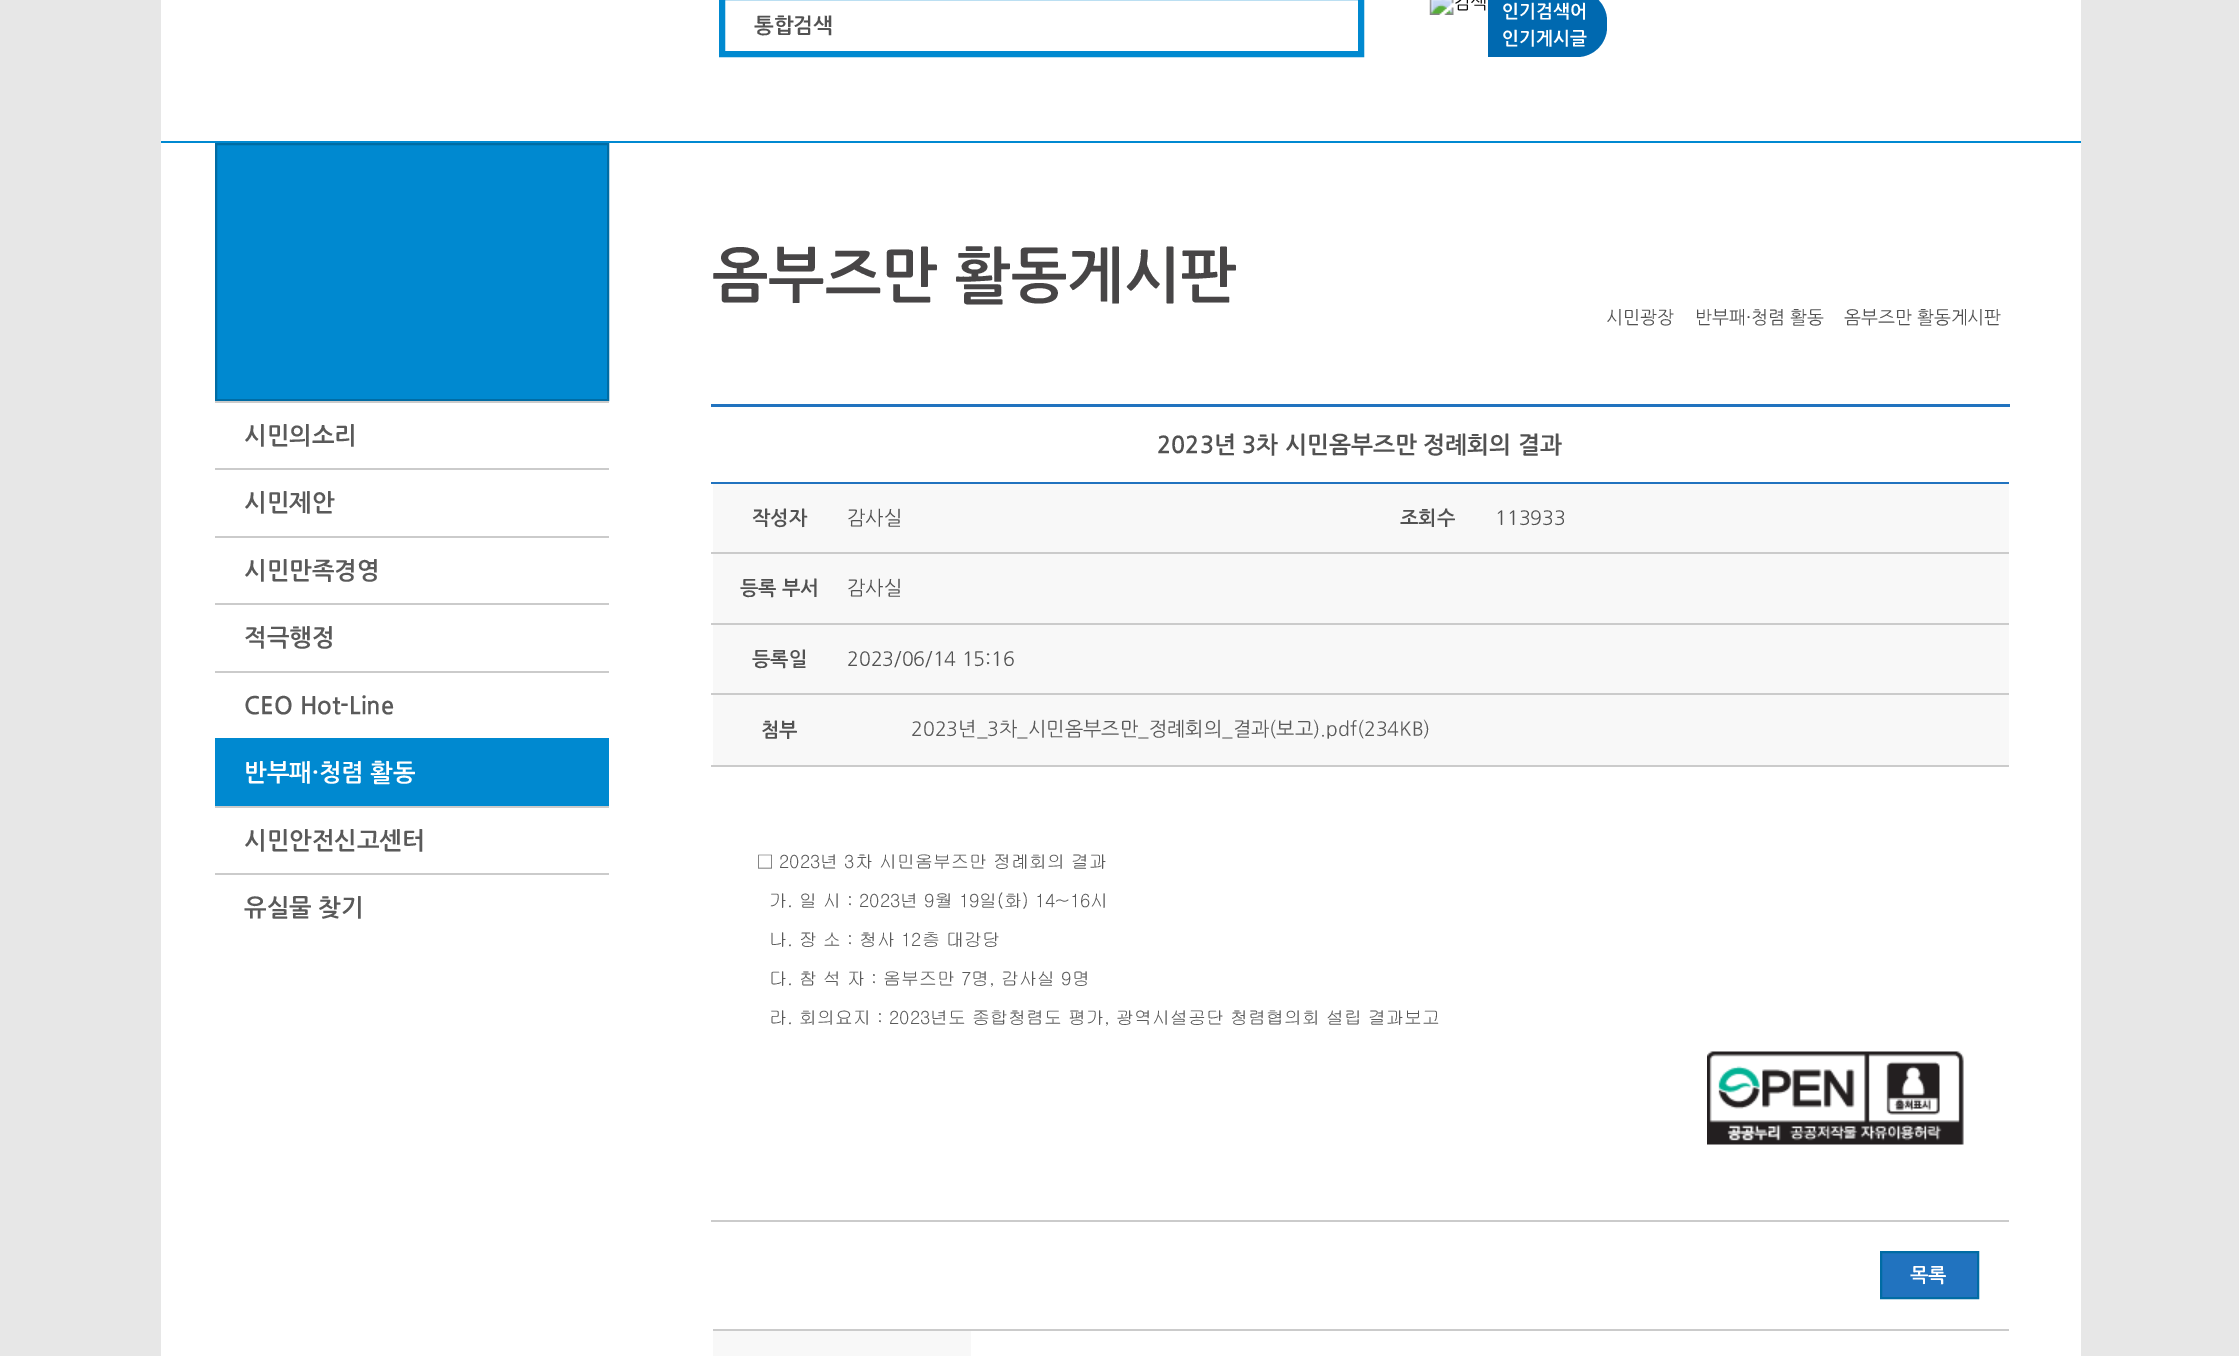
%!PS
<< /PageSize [2239 1356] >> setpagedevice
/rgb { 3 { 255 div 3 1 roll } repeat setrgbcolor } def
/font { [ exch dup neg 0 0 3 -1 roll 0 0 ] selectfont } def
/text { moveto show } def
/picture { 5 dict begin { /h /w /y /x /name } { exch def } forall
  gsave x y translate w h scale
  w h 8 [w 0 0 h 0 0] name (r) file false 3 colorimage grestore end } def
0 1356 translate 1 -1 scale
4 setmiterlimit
231 231 231 rgb
0 0 2239 1356 rectfill
255 255 255 rgb
161 0 1920 1356 rectfill
0 137 209 rgb
161 141 1920 2 rectfill
0 137 208 rgb
6 setlinewidth
722 -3 639 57 rectstroke
(img_01.rgb) 1429 0 57 15 picture
0 105 176 rgb
1488 -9 moveto 89 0 rlineto 16.5 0 30 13.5 30 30 rcurveto 0 6 rlineto 0 16.5 -13.5 30 -30 30 rcurveto -89 0 rlineto closepath fill
0 137 208 rgb
216 144 moveto 392 0 rlineto 0 256 rlineto -392 0 rlineto closepath gsave fill grestore
0 108 164 rgb
2 setlinewidth
stroke
203 203 203 rgb
215 401 394 2 rectfill
215 468 394 2 rectfill
215 536 394 2 rectfill
215 603 394 2 rectfill
215 671 394 2 rectfill
0 137 208 rgb
215 738 394 68 rectfill
203 203 203 rgb
215 806 394 2 rectfill
215 873 394 2 rectfill
33 115 191 rgb
711 482 1298 2 rectfill
711 404 1299 3 rectfill
248 248 248 rgb
713 484 1296 281 rectfill
203 203 203 rgb
711 552 1298 2 rectfill
711 623 1298 2 rectfill
711 693 1298 2 rectfill
711 765 1298 2 rectfill
711 1220 1298 2 rectfill
(img_02.rgb) 1707 1051 257 94 picture
33 115 191 rgb
1881 1252 moveto 97 0 rlineto 0 46 rlineto -97 0 rlineto closepath gsave fill grestore
0 108 164 rgb
stroke
203 203 203 rgb
713 1329 1296 2 rectfill
248 248 248 rgb
713 1331 258 25 rectfill
/NanumGothic-Bold 21 font
82 82 82 rgb
(통합검색) 754 32 text
/NanumGothic-Bold 18 font
255 255 255 rgb
(인기검색어) 1502 17 text
(인기게시글) 1502 44 text
/NanumGothic-Bold 24 font
90 90 90 rgb
(시민의소리) 244 443 text
(시민제안) 244 510 text
(시민만족경영) 244 578 text
(적극행정) 244 645 text
(CEO Hot-Line) 244 713 text
255 255 255 rgb
(반부패·청렴 활동) 244 780 text
90 90 90 rgb
(시민안전신고센터) 244 848 text
(유실물 찾기) 244 915 text
/NanumGothic-Bold 60 font
71 69 70 rgb
(옴부즈만 활동게시판) 712 294 text
/NanumGothic-Regular 18 font
82 82 82 rgb
(시민광장) 1606 323 text
(반부패·청렴 활동) 1695 323 text
(옴부즈만 활동게시판) 1844 323 text
/NanumGothic-Bold 23.4 font
(2023년 3차 시민옴부즈만 정례회의 결과) 1157 452 text
/NanumGothic-Bold 19.5 font
(작성자) 752 524 text
/NanumGothic-Regular 19.5 font
(감사실) 847 524 text
/NanumGothic-Bold 19.5 font
(조회수) 1400 524 text
/NanumGothic-Regular 19.5 font
(113933) 1495 524 text
/NanumGothic-Bold 19.5 font
(등록 부서) 740 594 text
/NanumGothic-Regular 19.5 font
(감사실) 847 594 text
/NanumGothic-Bold 19.5 font
(등록일) 752 665 text
/NanumGothic-Regular 19.5 font
(2023/06/14 15:16) 847 665 text
/NanumGothic-Bold 19.5 font
(첨부) 761 736 text
/NanumGothic-Regular 19.5 font
90 90 90 rgb
(2023년_3차_시민옴부즈만_정례회의_결과\(보고\).pdf\(234KB\)) 911 735 text
/Gulim-Regular 18 font
(□ 2023년 3차 시민옴부즈만 정례회의 결과) 757 868 text
(가. 일 시 : 2023년 9월 19일\(화\) 14~16시) 769 907 text
(나. 장 소 : 청사 12층 대강당) 769 946 text
(다. 참 석 자 : 옴부즈만 7명, 감사실 9명) 769 985 text
(라. 회의요지 : 2023년도 종합청렴도 평가, 광역시설공단 청렴협의회 설립 결과보고) 769 1024 text
/NanumGothic-Bold 19.5 font
255 255 255 rgb
(목록) 1910 1281 text
showpage
